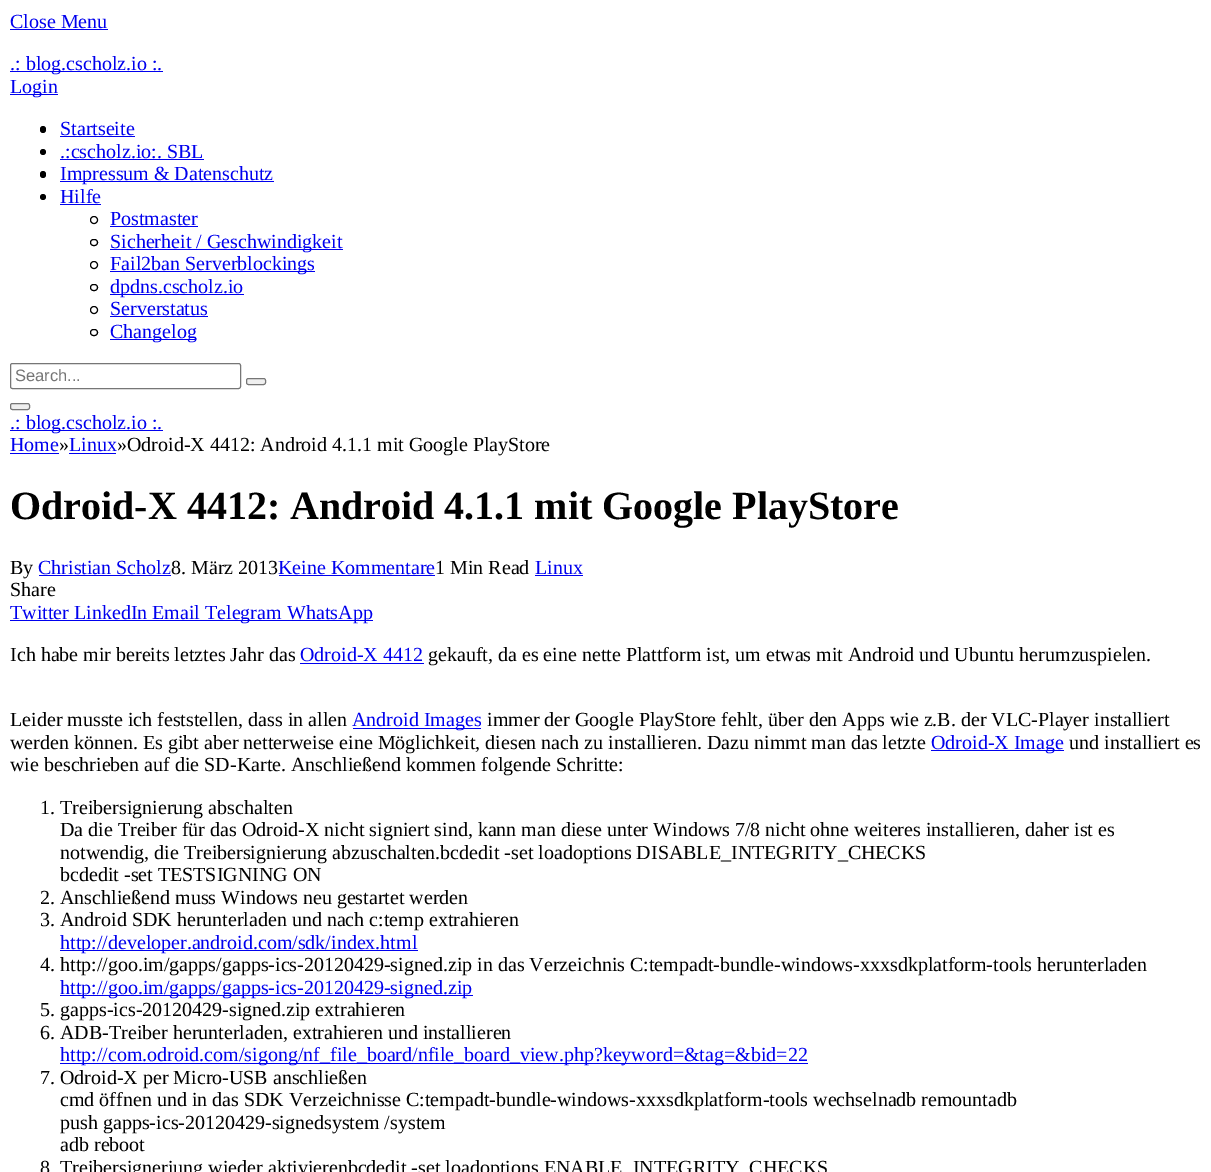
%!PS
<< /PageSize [1211 1172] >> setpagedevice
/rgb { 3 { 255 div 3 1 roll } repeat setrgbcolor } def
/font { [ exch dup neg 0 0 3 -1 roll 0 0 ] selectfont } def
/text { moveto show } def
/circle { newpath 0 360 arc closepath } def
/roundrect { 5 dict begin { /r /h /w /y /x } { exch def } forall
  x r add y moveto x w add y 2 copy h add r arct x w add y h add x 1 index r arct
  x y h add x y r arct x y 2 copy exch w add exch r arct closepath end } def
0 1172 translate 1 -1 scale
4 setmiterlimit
255 255 255 rgb
0 0 1211 1172 rectfill
0 0 238 rgb
10 29 98 1 rectfill
10 71 153 1 rectfill
10 94 48 1 rectfill
0 0 0 rgb
40 126 6 7 3 roundrect fill
0 0 238 rgb
60 136 75 1 rectfill
0 0 0 rgb
43 152 3 circle fill
0 0 238 rgb
60 159 144 1 rectfill
0 0 0 rgb
40 171 6 7 3 roundrect fill
0 0 238 rgb
60 181 214 1 rectfill
0 0 0 rgb
43 197 3 circle fill
0 0 238 rgb
60 204 41 1 rectfill
0 0 0 rgb
94 220 3.5 circle stroke
0 0 238 rgb
110 226 88 1 rectfill
0 0 0 rgb
90.5 239.5 7 6 3 roundrect stroke
0 0 238 rgb
110 249 233 1 rectfill
0 0 0 rgb
94 265 3.5 circle stroke
0 0 238 rgb
110 271 205 1 rectfill
0 0 0 rgb
90.5 284.5 7 6 3 roundrect stroke
0 0 238 rgb
110 294 134 1 rectfill
0 0 0 rgb
94 310 3.5 circle stroke
0 0 238 rgb
110 316 98 1 rectfill
0 0 0 rgb
90.5 329.5 7 6 3 roundrect stroke
0 0 238 rgb
110 339 86 1 rectfill
118 118 118 rgb
10.5 363.5 230 25 2 roundrect stroke
239 239 239 rgb
246.5 378.5 19 6 2 roundrect gsave fill grestore
118 118 118 rgb
stroke
239 239 239 rgb
10.5 403.5 19 6 2 roundrect gsave fill grestore
118 118 118 rgb
stroke
0 0 238 rgb
10 430 153 1 rectfill
10 453 49 1 rectfill
69 453 47 1 rectfill
39 575 132 1 rectfill
279 575 156 1 rectfill
535 575 48 1 rectfill
10 620 271 1 rectfill
281 620 92 1 rectfill
300 663 124 1 rectfill
353 728 128 1 rectfill
931 750 133 1 rectfill
60 950 358 1 rectfill
60 995 413 1 rectfill
60 1063 748 1 rectfill
/LiberationSerif-Regular 20 font
(Close Menu) 10 28 text
(.: blog.cscholz.io :.) 10 70 text
(Login) 10 93 text
(Startseite) 60 135 text
(.:cscholz.io:. SBL) 60 158 text
(Impressum & Datenschutz) 60 180 text
(Hilfe) 60 203 text
(Postmaster) 110 225 text
(Sicherheit / Geschwindigkeit) 110 248 text
(Fail2ban Serverblockings) 110 270 text
(dpdns.cscholz.io) 110 293 text
(Serverstatus) 110 315 text
(Changelog) 110 338 text
/LiberationSans-Regular 16.5 font
117 117 117 rgb
(Search...) 15 381 text
/LiberationSerif-Regular 20 font
0 0 238 rgb
(.: blog.cscholz.io :.) 10 429 text
(Home) 10 451 text
0 0 0 rgb
(») 59 451 text
0 0 238 rgb
(Linux) 69 451 text
0 0 0 rgb
(»Odroid-X 4412: Android 4.1.1 mit Google PlayStore) 117 451 text
/LiberationSerif-Bold 40 font
(Odroid-X 4412: Android 4.1.1 mit Google PlayStore) 10 519 text
/LiberationSerif-Regular 20 font
(By) 10 574 text
0 0 238 rgb
(Christian Scholz) 38 574 text
0 0 0 rgb
(8. März 2013) 171 574 text
0 0 238 rgb
(Keine Kommentare) 278 574 text
0 0 0 rgb
(1 Min Read) 435 574 text
0 0 238 rgb
(Linux) 535 574 text
0 0 0 rgb
(Share) 10 596 text
0 0 238 rgb
(Twitter LinkedIn Email Telegram) 10 619 text
(WhatsApp) 287 619 text
0 0 0 rgb
(Ich habe mir bereits letztes Jahr das) 10 661 text
0 0 238 rgb
(Odroid-X 4412) 300 661 text
0 0 0 rgb
(gekauft, da es eine nette Plattform ist, um etwas mit Android und Ubuntu herumzuspielen.) 428 661 text
(Leider musste ich feststellen, dass in allen) 10 726 text
0 0 238 rgb
(Android Images) 352 726 text
0 0 0 rgb
(immer der Google PlayStore fehlt, über den Apps wie z.B. der VLC-Player installiert) 487 726 text
(werden können. Es gibt aber netterweise eine Möglichkeit, diesen nach zu installieren. Dazu nimmt man das letzte) 10 749 text
0 0 238 rgb
(Odroid-X Image) 931 749 text
0 0 0 rgb
(und installiert es) 1069 749 text
(wie beschrieben auf die SD-Karte. Anschließend kommen folgende Schritte:) 10 771 text
(1. Treibersignierung abschalten) 40 814 text
(Da die Treiber für das Odroid-X nicht signiert sind, kann man diese unter Windows 7/8 nicht ohne weiteres installieren, daher ist es) 60 836 text
(notwendig, die Treibersignierung abzuschalten.bcdedit -set loadoptions DISABLE_INTEGRITY_CHECKS) 60 859 text
(bcdedit -set TESTSIGNING ON) 60 881 text
(2. Anschließend muss Windows neu gestartet werden) 40 904 text
(3. Android SDK herunterladen und nach c:temp extrahieren) 40 926 text
0 0 238 rgb
(http://developer.android.com/sdk/index.html) 60 949 text
0 0 0 rgb
(4. http://goo.im/gapps/gapps-ics-20120429-signed.zip in das Verzeichnis C:tempadt-bundle-windows-xxxsdkplatform-tools herunterladen) 40 971 text
0 0 238 rgb
(http://goo.im/gapps/gapps-ics-20120429-signed.zip) 60 994 text
0 0 0 rgb
(5. gapps-ics-20120429-signed.zip extrahieren) 40 1016 text
(6. ADB-Treiber herunterladen, extrahieren und installieren) 40 1039 text
0 0 238 rgb
(http://com.odroid.com/sigong/nf_file_board/nfile_board_view.php?keyword=&tag=&bid=22) 60 1061 text
0 0 0 rgb
(7. Odroid-X per Micro-USB anschließen) 40 1084 text
(cmd öffnen und in das SDK Verzeichnisse C:tempadt-bundle-windows-xxxsdkplatform-tools wechselnadb remountadb) 60 1106 text
(push gapps-ics-20120429-signedsystem /system) 60 1129 text
(adb reboot) 60 1151 text
(8) 40 1174 text
(Treibersigneriung wieder aktivierenbcdedit -set loadoptions ENABLE_INTEGRITY_CHECKS) 60 1174 text
showpage
